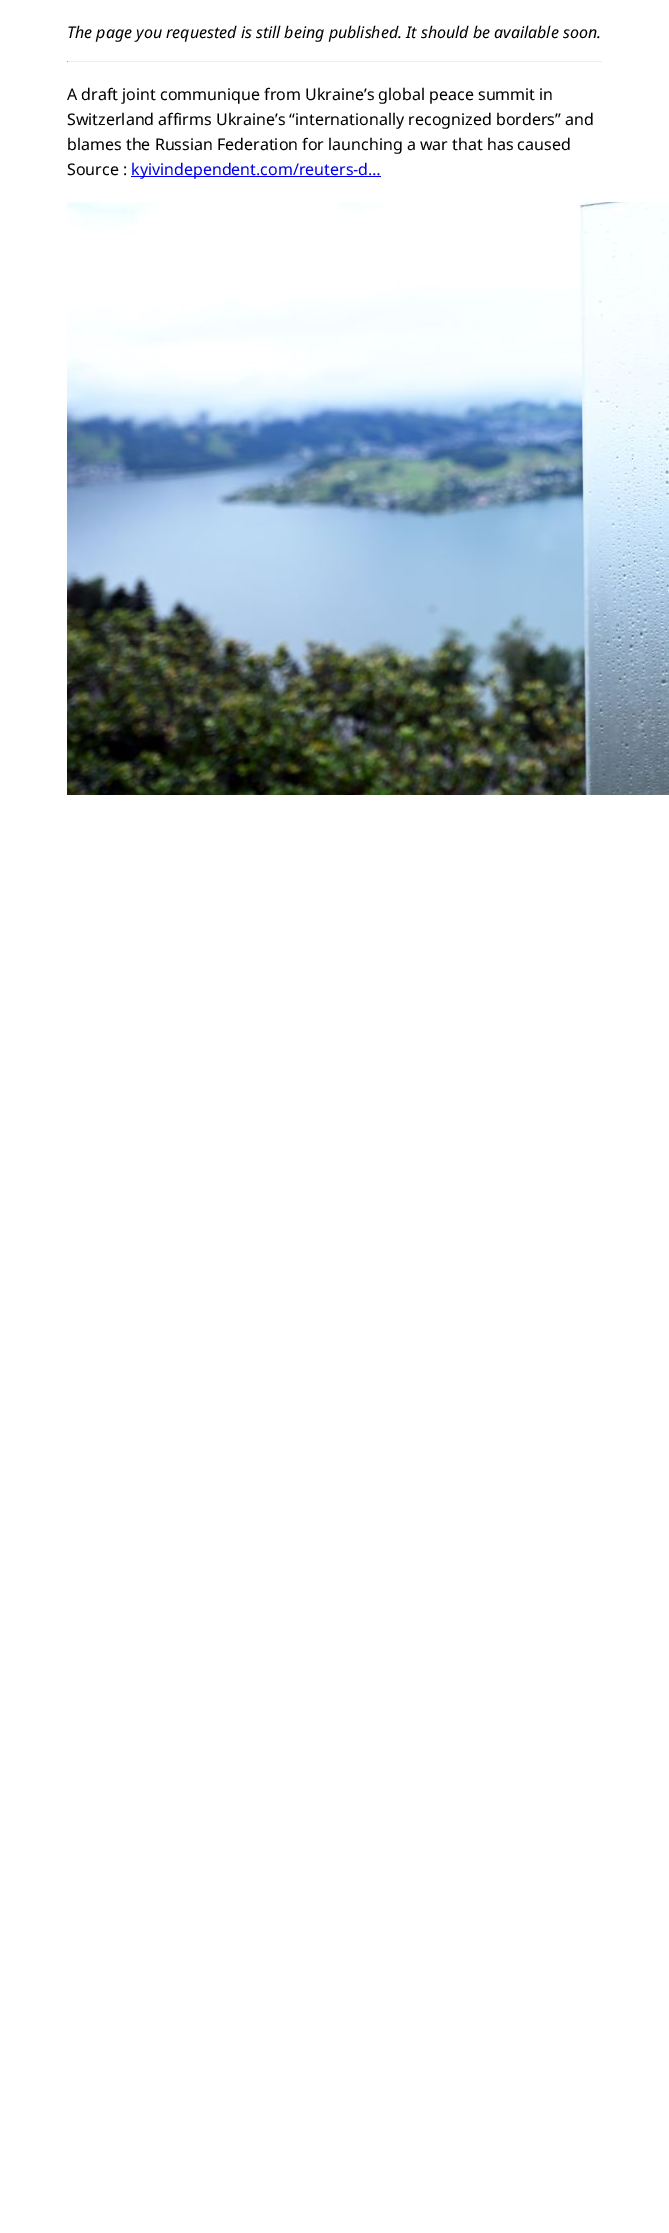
%!PS
<< /PageSize [669 2233] >> setpagedevice
/rgb { 3 { 255 div 3 1 roll } repeat setrgbcolor } def
/font { [ exch dup neg 0 0 3 -1 roll 0 0 ] selectfont } def
/text { moveto show } def
/picture { 5 dict begin { /h /w /y /x /name } { exch def } forall
  gsave x y translate w h scale
  w h 8 [w 0 0 h 0 0] name (r) file false 3 colorimage grestore end } def
0 2233 translate 1 -1 scale
4 setmiterlimit
255 255 255 rgb
0 0 669 2233 rectfill
238 238 238 rgb
67 61 535 1 rectfill
159 159 159 rgb
67 61 1 1 rectfill
0 0 238 rgb
131 176 250 1 rectfill
(img_01.rgb) 67 202 602 593 picture
/NotoSans-Italic 16 font
0 0 0 rgb
(The page you requested is still being published. It should be available soon.) 67 38 text
/NotoSans-Regular 16 font
(A draft joint communique from Ukraine’s global peace summit in) 67 100 text
(Switzerland affirms Ukraine’s “internationally recognized borders” and) 67 125 text
(blames the Russian Federation for launching a war that has caused) 67 150 text
(Source :) 67 175 text
0 0 238 rgb
(kyivindependent.com/reuters-d…) 131 175 text
showpage
